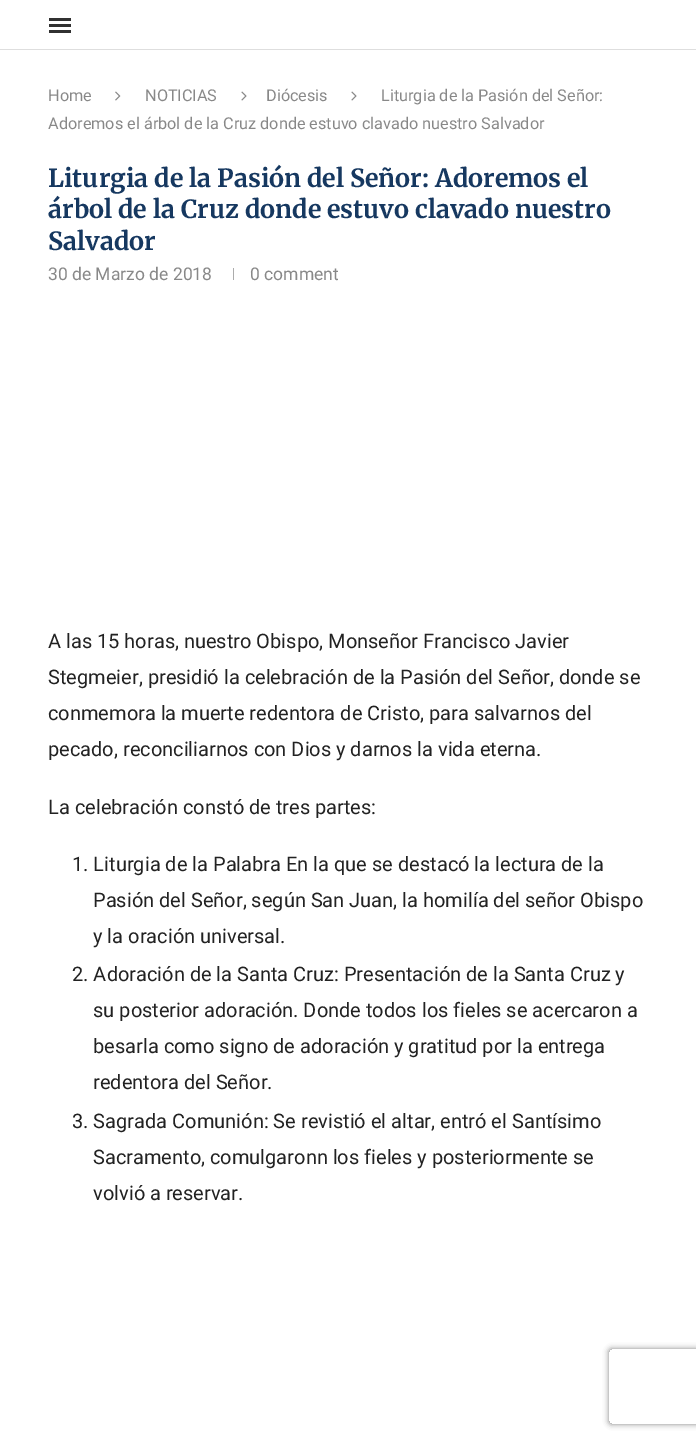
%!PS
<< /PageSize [696 1441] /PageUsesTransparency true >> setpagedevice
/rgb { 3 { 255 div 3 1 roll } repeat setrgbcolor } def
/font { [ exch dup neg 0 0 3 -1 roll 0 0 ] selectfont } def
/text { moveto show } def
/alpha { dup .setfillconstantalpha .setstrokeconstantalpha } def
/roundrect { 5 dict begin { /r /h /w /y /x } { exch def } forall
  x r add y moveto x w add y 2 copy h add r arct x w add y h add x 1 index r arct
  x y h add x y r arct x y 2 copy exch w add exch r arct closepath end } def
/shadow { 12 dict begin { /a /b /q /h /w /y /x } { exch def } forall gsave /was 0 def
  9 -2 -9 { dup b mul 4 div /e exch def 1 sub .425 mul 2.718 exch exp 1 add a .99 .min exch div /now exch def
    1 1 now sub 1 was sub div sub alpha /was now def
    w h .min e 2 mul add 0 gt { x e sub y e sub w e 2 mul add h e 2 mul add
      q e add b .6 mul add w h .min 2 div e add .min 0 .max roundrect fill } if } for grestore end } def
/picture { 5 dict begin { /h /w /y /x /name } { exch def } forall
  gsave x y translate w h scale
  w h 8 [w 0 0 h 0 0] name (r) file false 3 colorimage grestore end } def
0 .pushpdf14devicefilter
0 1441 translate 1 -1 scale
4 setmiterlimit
255 255 255 rgb
0 0 696 1441 rectfill
222 222 222 rgb
0 49 696 1 rectfill
49 49 49 rgb
49 18 22 3 rectfill
49 30 22 3 rectfill
49 24 22 3 rectfill
(img_01.rgb) 115 91 6 10 picture
(img_02.rgb) 241 91 6 10 picture
(img_02.rgb) 351 91 6 10 picture
172 172 172 rgb
233 268 1 12 rectfill
gsave
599 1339 moveto 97 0 rlineto 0 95 rlineto -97 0 rlineto closepath 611.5 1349 moveto 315 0 rlineto 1.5 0 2.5 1 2.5 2.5 rcurveto 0 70 rlineto 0 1.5 -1 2.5 -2.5 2.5 rcurveto -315 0 rlineto -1.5 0 -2.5 -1 -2.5 -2.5 rcurveto 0 -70 rlineto 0 -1.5 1 -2.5 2.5 -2.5 rcurveto closepath eoclip newpath
128 128 128 rgb
609 1349 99 75 2.5 3 1 shadow
grestore
/Roboto-Regular 16.25 font
136 136 136 rgb
(Home) 48 101 text
(NOTICIAS) 145 101 text
(Diócesis) 266 101 text
(Liturgia de la Pasión del Señor:) 381 101 text
(Adoremos el árbol de la Cruz donde estuvo clavado nuestro Salvador) 48 129 text
/Merriweather-Bold 25 font
22 56 96 rgb
(Liturgia de la Pasión del Señor: Adoremos el) 48 187 text
(árbol de la Cruz donde estuvo clavado nuestro) 48 218 text
(Salvador) 48 250 text
/Roboto-Regular 17.5 font
136 136 136 rgb
(30 de Marzo de 2018) 48 280 text
(0 comment) 250 280 text
/Roboto-Regular 20 font
34 34 34 rgb
(A las 15 horas, nuestro Obispo, Monseñor Francisco Javier) 48 648 text
(Stegmeier, presidió la celebración de la Pasión del Señor, donde se) 48 684 text
(conmemora la muerte redentora de Cristo, para salvarnos del) 48 720 text
(pecado, reconciliarnos con Dios y darnos la vida eterna.) 48 756 text
(La celebración constó de tres partes:) 48 814 text
(1. Liturgia de la Palabra En la que se destacó la lectura de la) 72 871 text
(Pasión del Señor, según San Juan, la homilía del señor Obispo) 93 907 text
(y la oración universal.) 93 943 text
(2. Adoración de la Santa Cruz: Presentación de la Santa Cruz y) 72 981 text
(su posterior adoración. Donde todos los fieles se acercaron a) 93 1017 text
(besarla como signo de adoración y gratitud por la entrega) 93 1053 text
(redentora del Señor.) 93 1089 text
(3. Sagrada Comunión: Se revistió el altar, entró el Santísimo) 72 1128 text
(Sacramento, comulgaronn los fieles y posteriormente se) 93 1164 text
(volvió a reservar.) 93 1200 text
.poppdf14devicefilter showpage
